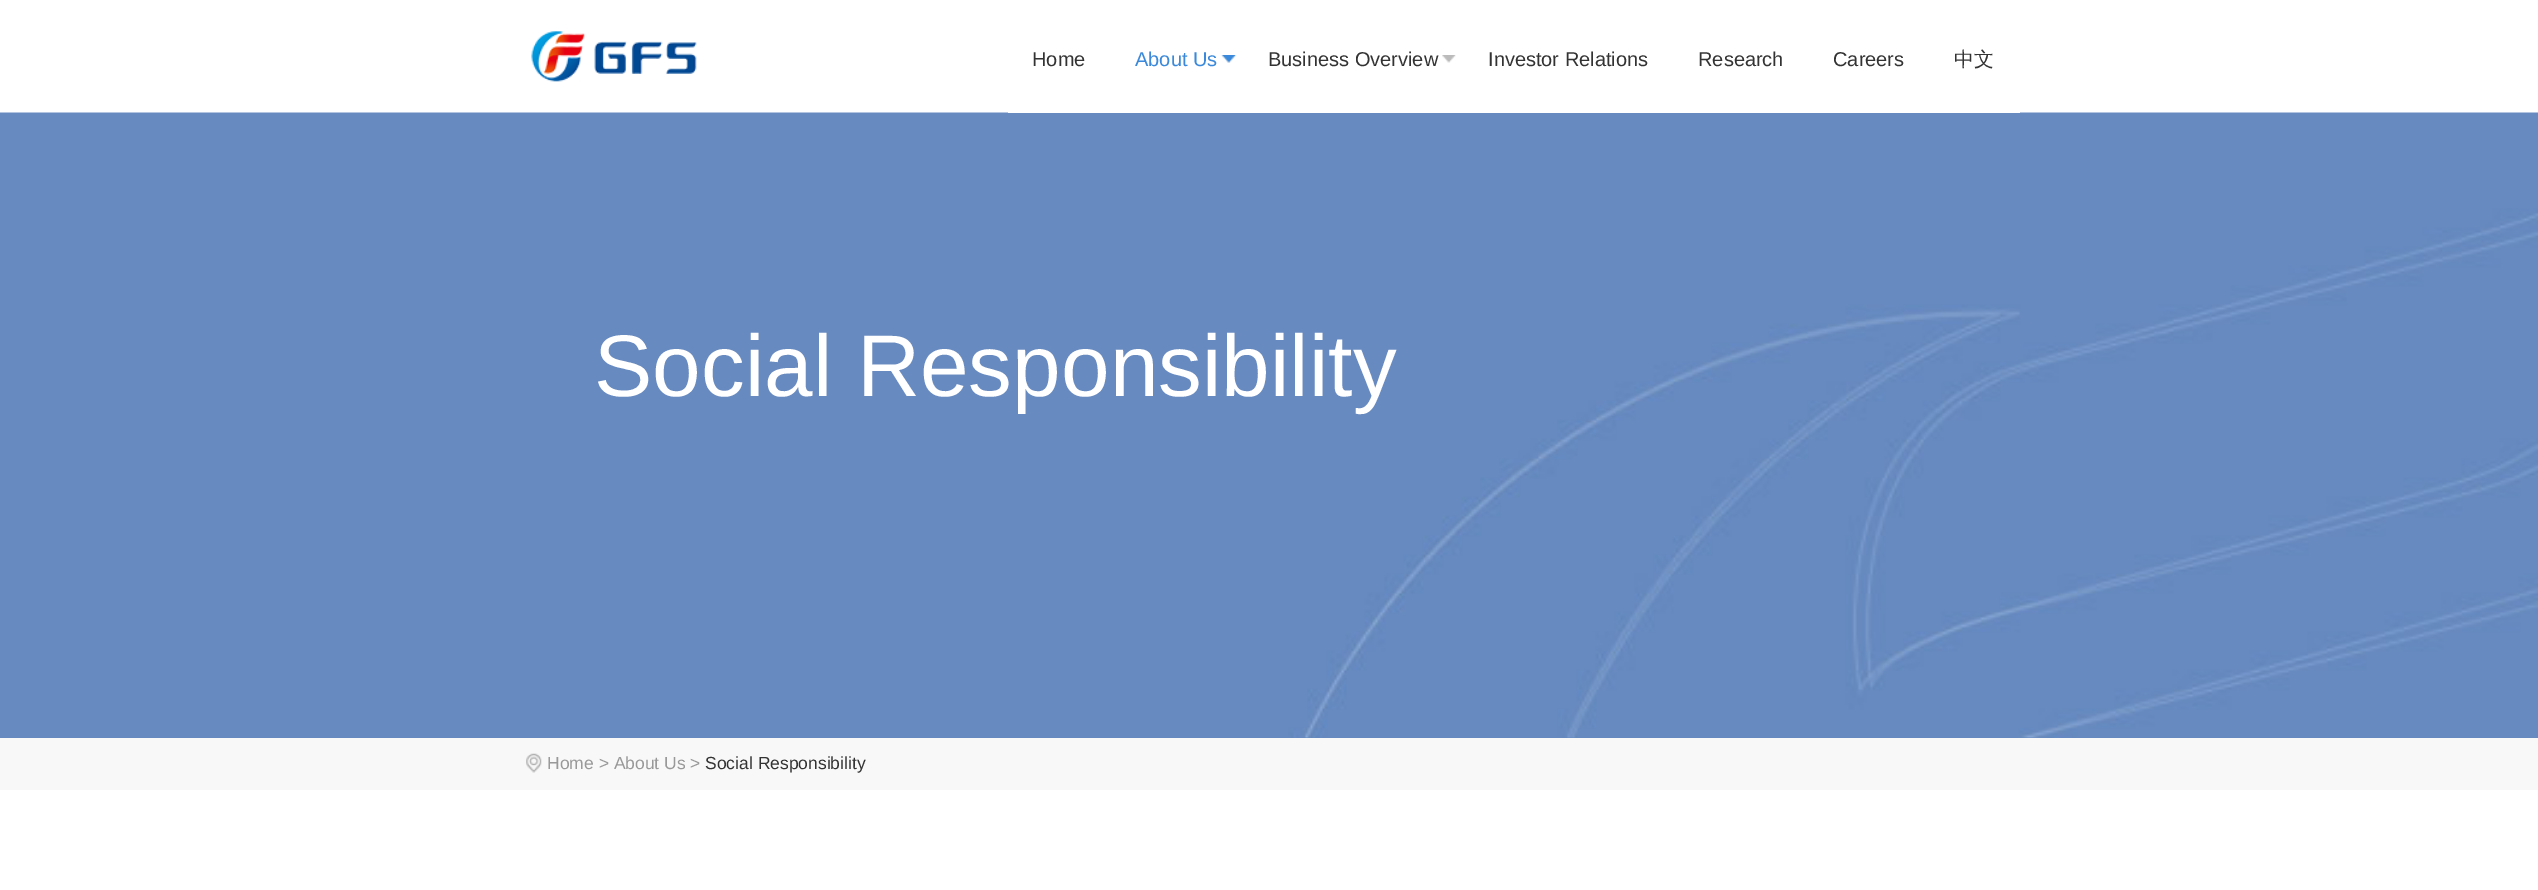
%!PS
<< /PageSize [2538 890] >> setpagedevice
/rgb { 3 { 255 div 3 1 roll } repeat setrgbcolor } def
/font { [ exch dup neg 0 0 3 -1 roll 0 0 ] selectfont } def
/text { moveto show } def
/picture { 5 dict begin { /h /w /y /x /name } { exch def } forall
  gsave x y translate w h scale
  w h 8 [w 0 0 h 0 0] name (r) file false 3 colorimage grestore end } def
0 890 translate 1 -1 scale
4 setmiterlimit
255 255 255 rgb
0 0 2538 890 rectfill
(img_01.rgb) 531 31 166 51 picture
102 138 192 rgb
0 737 2538 1 rectfill
(img_04.rgb) 0 112 2538 626 picture
255 255 255 rgb
1008 112 235 1 rectfill
(img_02.rgb) 1221 55 16 8 picture
(img_03.rgb) 1442 55 14 8 picture
1243 112 777 1 rectfill
248 248 248 rgb
0 738 2538 52 rectfill
(img_05.rgb) 526 753 16 20 picture
/LiberationSans-Regular 20 font
51 51 51 rgb
(Home) 1032 66 text
58 137 218 rgb
(About Us) 1135 66 text
51 51 51 rgb
(Business Overview) 1268 66 text
(Investor Relations) 1488 66 text
(Research) 1698 66 text
(Careers) 1833 66 text
/WenQuanYiZenHei-Medium 20 font
(中文) 1954 66 text
/LiberationSans-Regular 87.5 font
255 255 255 rgb
(Social Responsibility) 594 396 text
/LiberationSans-Regular 17.5 font
153 153 153 rgb
(Home > About Us >) 547 769 text
51 51 51 rgb
(Social Responsibility) 705 769 text
showpage
